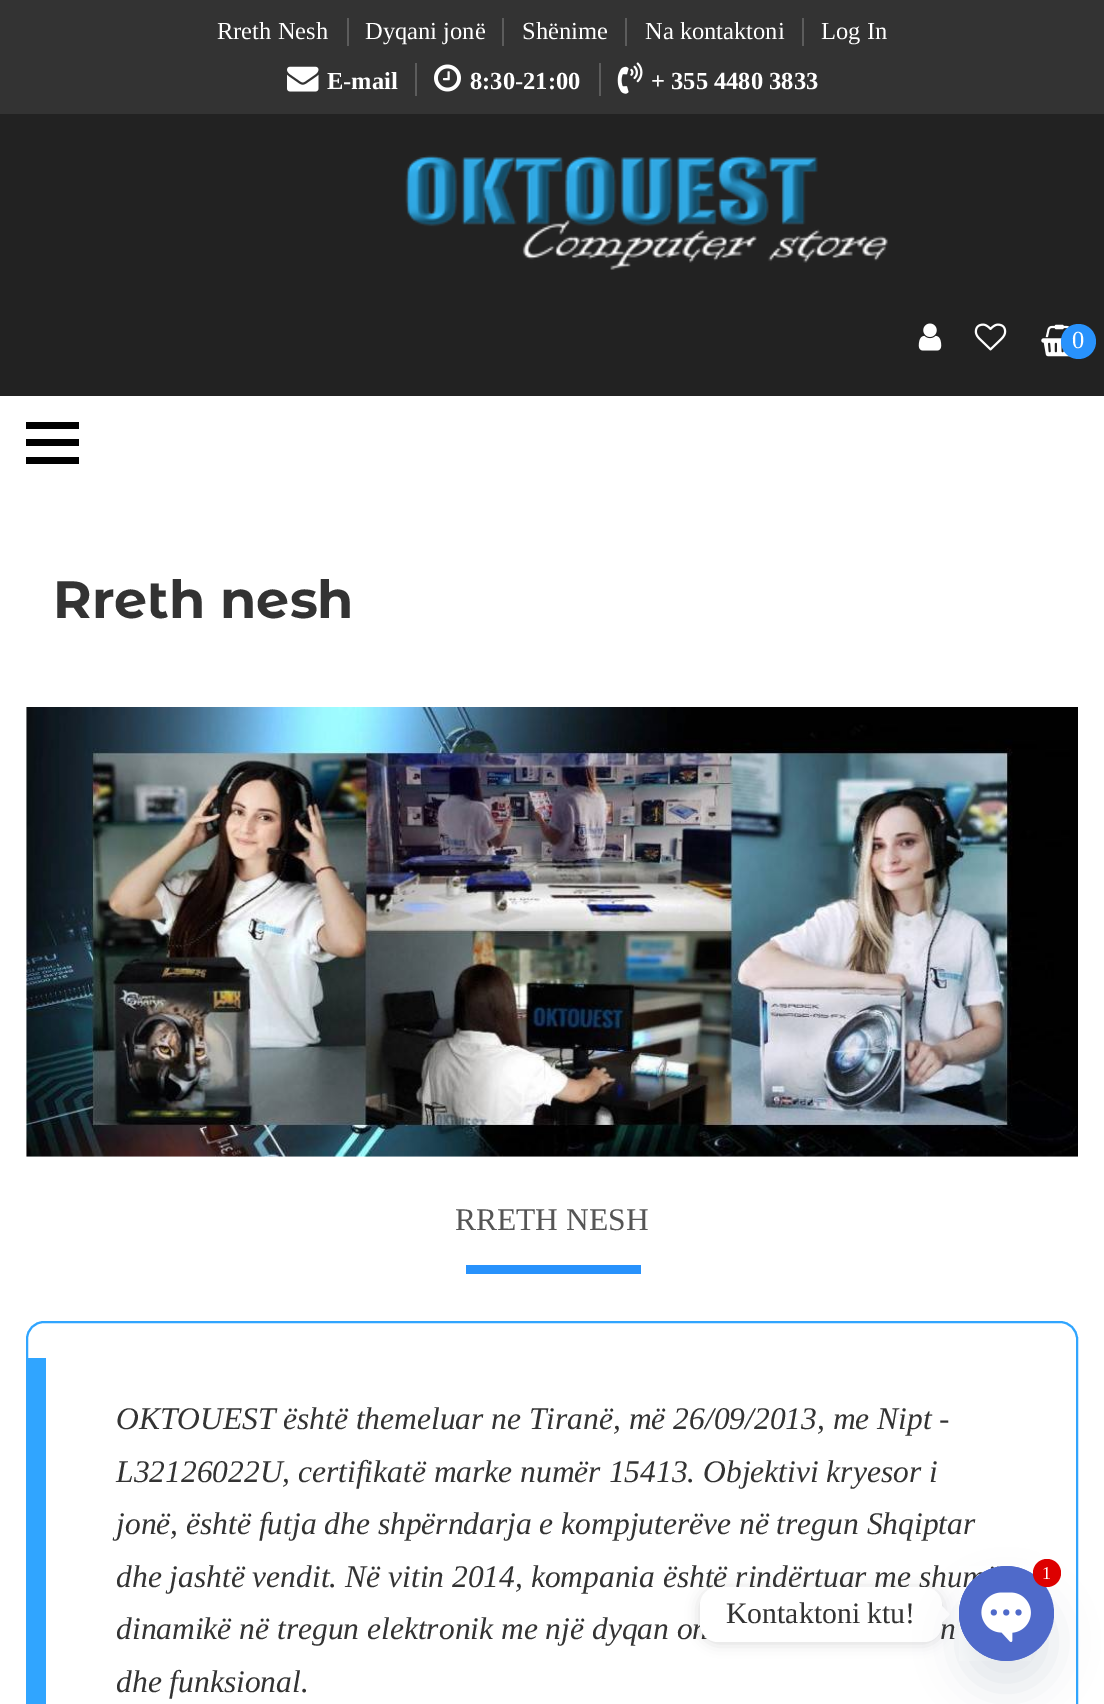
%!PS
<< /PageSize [1104 1704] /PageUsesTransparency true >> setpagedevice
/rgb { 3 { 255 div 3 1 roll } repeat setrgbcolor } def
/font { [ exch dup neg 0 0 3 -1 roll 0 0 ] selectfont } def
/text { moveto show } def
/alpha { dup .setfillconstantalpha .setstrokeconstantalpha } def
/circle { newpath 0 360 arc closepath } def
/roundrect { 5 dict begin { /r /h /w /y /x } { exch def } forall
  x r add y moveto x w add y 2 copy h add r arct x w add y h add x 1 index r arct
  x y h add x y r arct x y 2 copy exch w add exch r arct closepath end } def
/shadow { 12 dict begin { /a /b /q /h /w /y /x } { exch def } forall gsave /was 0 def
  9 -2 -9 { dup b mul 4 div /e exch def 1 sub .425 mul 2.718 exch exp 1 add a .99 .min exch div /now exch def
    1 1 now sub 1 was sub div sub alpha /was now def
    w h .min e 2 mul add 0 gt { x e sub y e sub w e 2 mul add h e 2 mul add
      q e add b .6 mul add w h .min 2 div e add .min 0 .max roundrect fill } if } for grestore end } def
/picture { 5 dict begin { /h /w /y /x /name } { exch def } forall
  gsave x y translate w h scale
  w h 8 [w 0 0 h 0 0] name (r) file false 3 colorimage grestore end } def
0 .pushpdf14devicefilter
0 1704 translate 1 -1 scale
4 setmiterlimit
255 255 255 rgb
0 0 1104 1704 rectfill
51 51 51 rgb
0 0 1104 114 rectfill
92 92 92 rgb
347 18 2 28 rectfill
502 18 2 28 rectfill
625 18 2 28 rectfill
802 18 2 28 rectfill
415 63 2 33 rectfill
(img_01.rgb) 287 66 32 26 picture
599 63 2 33 rectfill
(img_02.rgb) 434 64 27 28 picture
(img_03.rgb) 617 62 26 32 picture
34 34 34 rgb
0 114 1104 282 rectfill
(img_04.rgb) 405 155 483 115 picture
(img_05.rgb) 918 323 24 28 picture
(img_06.rgb) 974 323 33 28 picture
(img_07.rgb) 1041 324 30 33 picture
40 146 252 rgb
1078.5 341.5 17.5 circle fill
0 0 0 rgb
26 422 53 7 rectfill
26 439 53 7 rectfill
26 457 53 7 rectfill
(img_08.rgb) 26 707 1052 450 picture
40 146 252 rgb
466 1265 175 9 rectfill
48 165 255 rgb
2 setlinewidth
27 1322 1050 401 17 roundrect stroke
28 1358 18 346 rectfill
0 0 0 rgb
700 1589 242 54 18 7 0.15 shadow
/LiberationSerif-Regular 24.5 font
255 255 255 rgb
(Rreth Nesh) 217 39 text
(Dyqani jonë) 365 39 text
(Shënime) 522 39 text
(Na kontaktoni) 645 39 text
(Log In) 821 39 text
/LiberationSerif-Bold 24.5 font
(E-mail) 327 89 text
(8:30-21:00) 470 89 text
(+ 355 4480 3833) 651 89 text
/LiberationSerif-Regular 24.5 font
(0) 1072 348 text
/MontserratAlternates-Bold 52.5 font
51 51 51 rgb
(Rreth nesh) 53 618 text
/LiberationSerif-Regular 31.5 font
85 85 85 rgb
(RRETH NESH) 455 1230 text
/LiberationSerif-Italic 31.5 font
51 51 51 rgb
(OKTOUEST është themeluar ne Tiranë, më 26/09/2013, me Nipt -) 116 1429 text
(L32126022U, certifikatë marke numër 15413. Objektivi kryesor i) 116 1482 text
(jonë, është futja dhe shpërndarja e kompjuterëve në tregun Shqiptar) 116 1534 text
(dhe jashtë vendit. Në vitin 2014, kompania është rindërtuar me shum) 116 1587 text
(dinamikë në tregun elektronik me një dyqan on) 116 1639 text
(n) 940 1639 text
(dhe funksional.) 116 1692 text
255 255 255 rgb
700 1587 242 55 18 roundrect fill
/LiberationSerif-Regular 29.75 font
51 51 51 rgb
(Kontaktoni ktu!) 726 1623 text
255 255 255 rgb
941.5 1623 moveto 0 -17.5 rlineto 8.5 9 rlineto closepath fill
73 104 126 rgb
959 1594 95 95 47.5 21 0.16 shadow
79 106 202 rgb
1006.5 1613.5 47.5 circle fill
221 0 0 rgb
1047 1573 14 circle fill
/LiberationSerif-Regular 18 font
255 255 255 rgb
(1) 1042 1579 text
(img_09.rgb) 959 1566 72 95 picture
.poppdf14devicefilter showpage
